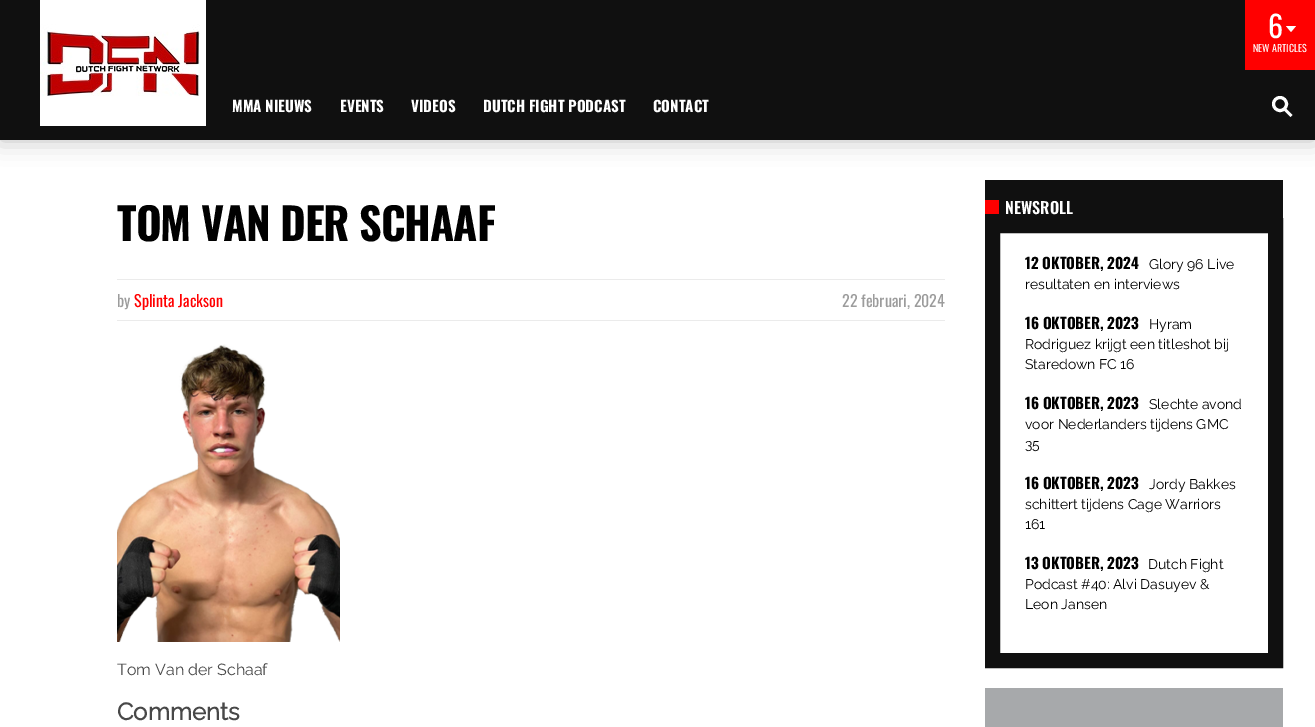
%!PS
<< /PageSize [1315 727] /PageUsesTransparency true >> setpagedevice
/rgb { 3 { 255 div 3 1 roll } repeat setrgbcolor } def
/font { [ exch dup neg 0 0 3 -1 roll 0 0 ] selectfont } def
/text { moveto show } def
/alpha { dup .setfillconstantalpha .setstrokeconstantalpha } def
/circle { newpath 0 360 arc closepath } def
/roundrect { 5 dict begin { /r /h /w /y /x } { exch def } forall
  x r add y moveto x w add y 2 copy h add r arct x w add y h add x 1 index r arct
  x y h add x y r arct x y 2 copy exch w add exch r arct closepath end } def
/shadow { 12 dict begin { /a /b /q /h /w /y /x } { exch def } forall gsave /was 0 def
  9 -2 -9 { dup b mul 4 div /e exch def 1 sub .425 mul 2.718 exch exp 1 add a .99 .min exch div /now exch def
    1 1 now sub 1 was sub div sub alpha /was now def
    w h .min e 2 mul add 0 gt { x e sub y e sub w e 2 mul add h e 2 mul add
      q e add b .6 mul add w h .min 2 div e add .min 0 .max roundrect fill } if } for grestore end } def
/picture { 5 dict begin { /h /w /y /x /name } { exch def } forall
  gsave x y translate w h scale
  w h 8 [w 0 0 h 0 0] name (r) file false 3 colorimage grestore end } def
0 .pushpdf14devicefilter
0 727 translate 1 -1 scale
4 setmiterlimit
255 255 255 rgb
0 0 1315 727 rectfill
0 0 0 rgb
0 0 1315 140 0 12 0.25 shadow
16 16 16 rgb
0 0 1245 70 rectfill
0 70 1315 70 rectfill
(img_01.rgb) 40 0 166 126 picture
255 0 0 rgb
1245 0 70 70 rectfill
255 255 255 rgb
1286 26 moveto 10 0 rlineto -5 6 rlineto closepath fill
3 setlinewidth
1280 104 6.5 circle stroke
1285.5 108 moveto 7 7 rlineto -2 2 rlineto -7 -7 rlineto closepath fill
235 235 235 rgb
117 279 828 1 rectfill
117 320 828 1 rectfill
(img_02.rgb) 117 344 223 298 picture
16 16 16 rgb
985 180 298 38 rectfill
255 0 0 rgb
985 200 14 14 rectfill
16 16 16 rgb
15 setlinewidth
992.5 225.5 283 435 rectstroke
167 169 171 rgb
985 688 298 39 rectfill
/Oswald-Regular 30 font
255 255 255 rgb
1268 38 moveto -2 0 (6) ashow
/Oswald-Regular 10 font
(NEW ARTICLES) 1253 52 text
/Oswald-Bold 15 font
(MMA NIEUWS) 232 112 text
(EVENTS) 340 112 text
(VIDEOS) 411 112 text
(DUTCH FIGHT PODCAST) 483 112 text
(CONTACT) 653 112 text
/Oswald-Bold 44 font
0 0 0 rgb
117 241 moveto -1 0 (TOM VAN DER SCHAAF) ashow
/Oswald-Regular 16 font
156 156 156 rgb
(by) 117 307 text
255 0 0 rgb
(Splinta Jackson) 134 307 text
156 156 156 rgb
(22 februari, 2024) 842 307 text
/Raleway-Thin 16 font
72 72 72 rgb
(Tom Van der Schaaf) 117 675 text
/Raleway-Bold 24 font
(Comments) 117 720 text
/Oswald-SemiBold 16 font
255 255 255 rgb
(NEWSROLL) 1005 214 text
/Oswald-Bold 15 font
0 0 0 rgb
(12 OKTOBER, 2024) 1025 269 text
/Raleway-Thin 14 font
(Glory 96 Live) 1149 269 text
(resultaten en interviews) 1025 289 text
/Oswald-Bold 15 font
(16 OKTOBER, 2023) 1025 329 text
/Raleway-Thin 14 font
(Hyram) 1149 329 text
(Rodriguez krijgt een titleshot bij) 1025 349 text
(Staredown FC 16) 1025 369 text
/Oswald-Bold 15 font
(16 OKTOBER, 2023) 1025 409 text
/Raleway-Thin 14 font
(Slechte avond) 1149 409 text
(voor Nederlanders tijdens GMC) 1025 429 text
(35) 1025 449 text
/Oswald-Bold 15 font
(16 OKTOBER, 2023) 1025 489 text
/Raleway-Thin 14 font
(Jordy Bakkes) 1149 489 text
(schittert tijdens Cage Warriors) 1025 509 text
(161) 1025 529 text
/Oswald-Bold 15 font
(13 OKTOBER, 2023) 1025 569 text
/Raleway-Thin 14 font
(Dutch Fight) 1148 569 text
(Podcast #40: Alvi Dasuyev &) 1025 589 text
(Leon Jansen) 1025 609 text
.poppdf14devicefilter showpage
